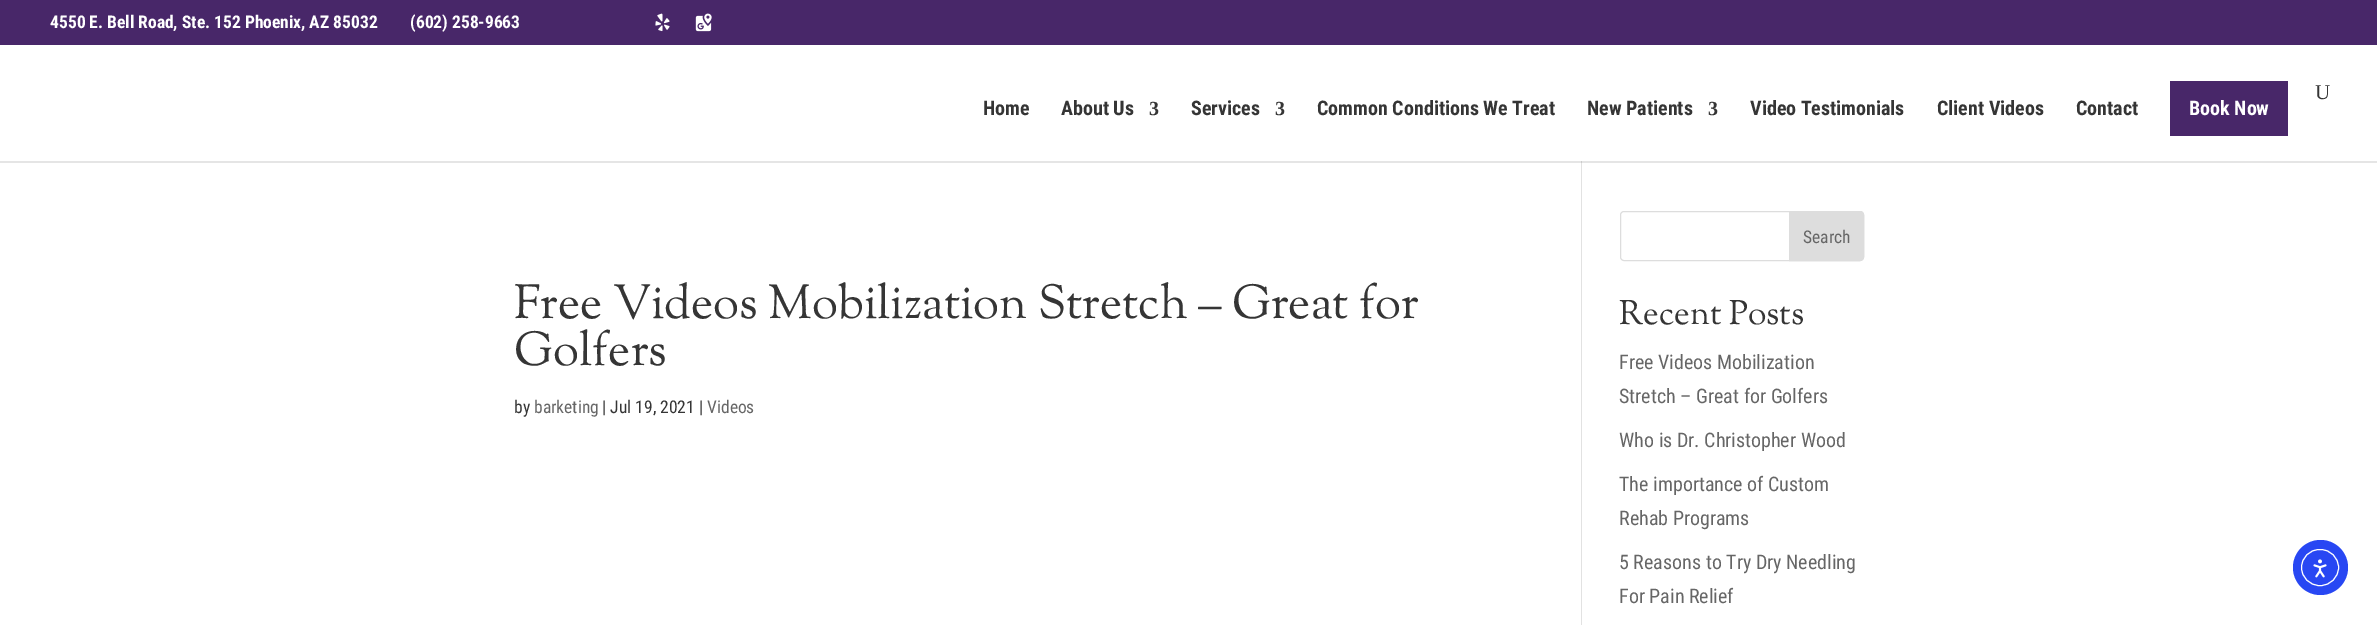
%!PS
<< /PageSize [2377 625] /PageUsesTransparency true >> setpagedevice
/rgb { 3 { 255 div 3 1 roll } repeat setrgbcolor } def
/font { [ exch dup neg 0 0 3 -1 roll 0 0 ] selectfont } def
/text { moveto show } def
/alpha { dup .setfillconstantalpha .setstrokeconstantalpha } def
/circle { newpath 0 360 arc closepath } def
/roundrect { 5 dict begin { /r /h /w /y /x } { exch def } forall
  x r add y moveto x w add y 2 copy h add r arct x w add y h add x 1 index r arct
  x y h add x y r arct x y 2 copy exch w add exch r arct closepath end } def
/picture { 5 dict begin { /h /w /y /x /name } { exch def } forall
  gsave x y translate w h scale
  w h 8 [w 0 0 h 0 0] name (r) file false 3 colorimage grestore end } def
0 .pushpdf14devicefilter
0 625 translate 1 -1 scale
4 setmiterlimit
255 255 255 rgb
0 0 2377 625 rectfill
72 39 105 rgb
0 0 2377 45 rectfill
(img_01.rgb) 655 13 15 19 picture
(img_02.rgb) 695 13 17 19 picture
226 226 226 rgb
1581 161 1 464 rectfill
0.1 alpha
0 0 0 rgb
0 161 moveto 0 2 rlineto 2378 0 rlineto 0 -124 rlineto 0 122 rlineto closepath fill
1 alpha
72 39 105 rgb
2170 81 118 55 rectfill
221 221 221 rgb
1620.5 211.5 243 49 3.5 roundrect stroke
1789.5 211.5 moveto 70.5 0 rlineto 2 0 3.5 1.5 3.5 3.5 rcurveto 0 42 rlineto 0 2 -1.5 3.5 -3.5 3.5 rcurveto -70.5 0 rlineto closepath gsave fill grestore
stroke
40 71 243 rgb
2320.5 567.5 27.5 circle fill
255 255 255 rgb
2301.5 549.5 37 36 18 roundrect stroke
(img_03.rgb) 2313 559 14 19 picture
/RobotoCondensed-Bold 17.5 font
(4550 E. Bell Road, Ste. 152 Phoenix, AZ 85032) 50 28 text
(\(602\) 258-9663) 410 28 text
/LiberationSerif-Regular 21 font
53 53 53 rgb
(U) 2315 99 text
/RobotoCondensed-Bold 20 font
(Home) 983 115 text
(About Us) 1061 115 text
/LiberationSerif-Bold 20 font
(3) 1149 115 text
/RobotoCondensed-Bold 20 font
(Services) 1191 115 text
/LiberationSerif-Bold 20 font
(3) 1275 115 text
/RobotoCondensed-Bold 20 font
(Common Conditions We Treat) 1317 115 text
(New Patients) 1587 115 text
/LiberationSerif-Bold 20 font
(3) 1708 115 text
/RobotoCondensed-Bold 20 font
(Video Testimonials) 1750 115 text
(Client Videos) 1937 115 text
(Contact) 2076 115 text
255 255 255 rgb
(Book Now) 2189 115 text
/SortsMillGoudy-Regular 47.5 font
53 53 53 rgb
(Free Videos Mobilization Stretch – Great for) 514 318 text
(Golfers) 514 365 text
/RobotoCondensed-Regular 17.5 font
(by) 514 413 text
102 102 102 rgb
(barketing) 534 413 text
53 53 53 rgb
(| Jul 19, 2021 |) 602 413 text
102 102 102 rgb
(Videos) 707 413 text
(Search) 1803 243 text
/SortsMillGoudy-Regular 33.75 font
53 53 53 rgb
(Recent Posts) 1619 324 text
/RobotoCondensed-Regular 20 font
102 102 102 rgb
(Free Videos Mobilization) 1619 369 text
(Stretch – Great for Golfers) 1619 403 text
(Who is Dr. Christopher Wood) 1619 447 text
(The importance of Custom) 1619 491 text
(Rehab Programs) 1619 525 text
(5 Reasons to Try Dry Needling) 1619 569 text
(For Pain Relief) 1619 603 text
.poppdf14devicefilter showpage
